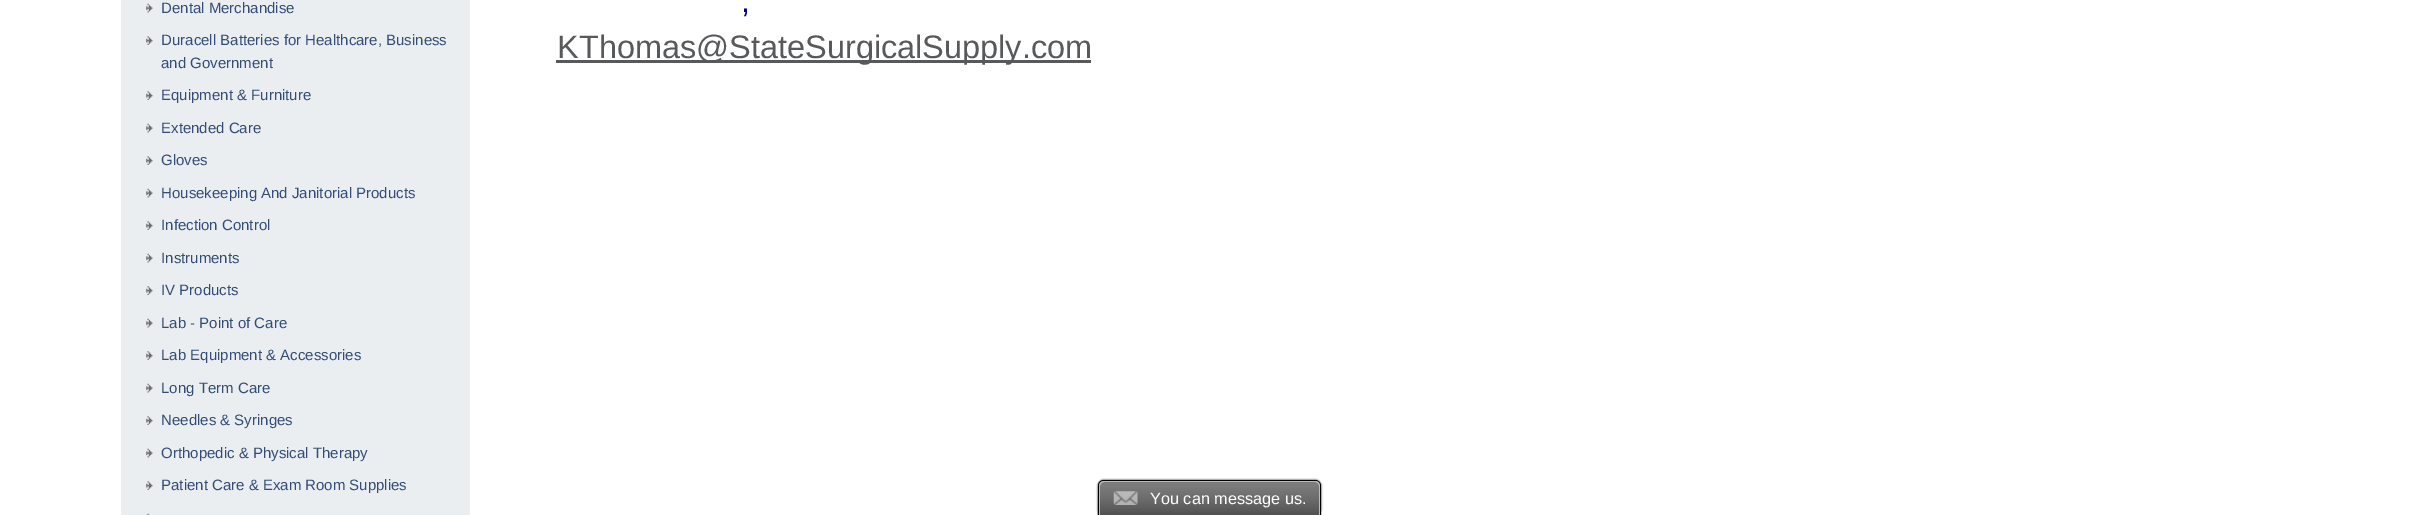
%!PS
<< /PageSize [2420 515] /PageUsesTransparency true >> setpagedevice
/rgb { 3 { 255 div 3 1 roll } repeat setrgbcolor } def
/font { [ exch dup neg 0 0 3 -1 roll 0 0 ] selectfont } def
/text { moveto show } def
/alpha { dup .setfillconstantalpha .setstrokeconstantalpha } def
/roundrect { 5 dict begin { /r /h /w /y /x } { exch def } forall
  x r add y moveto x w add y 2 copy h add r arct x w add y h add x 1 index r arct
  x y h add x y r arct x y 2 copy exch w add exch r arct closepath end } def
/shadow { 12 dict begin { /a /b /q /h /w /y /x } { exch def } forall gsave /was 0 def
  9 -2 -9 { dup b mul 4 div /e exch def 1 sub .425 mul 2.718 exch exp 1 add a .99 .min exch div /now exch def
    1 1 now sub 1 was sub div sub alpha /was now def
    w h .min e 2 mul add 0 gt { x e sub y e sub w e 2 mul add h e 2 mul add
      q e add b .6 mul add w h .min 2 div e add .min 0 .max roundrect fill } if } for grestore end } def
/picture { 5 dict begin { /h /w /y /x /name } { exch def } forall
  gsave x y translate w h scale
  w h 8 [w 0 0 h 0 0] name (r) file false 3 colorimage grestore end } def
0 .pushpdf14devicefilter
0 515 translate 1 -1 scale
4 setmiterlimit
255 255 255 rgb
0 0 2420 515 rectfill
234 238 240 rgb
121 0 349 515 rectfill
(img_01.rgb) 146 3 7 10 picture
(img_02.rgb) 146 36 7 9 picture
(img_02.rgb) 146 91 7 9 picture
(img_01.rgb) 146 123 7 10 picture
(img_02.rgb) 146 156 7 9 picture
(img_01.rgb) 146 188 7 10 picture
(img_02.rgb) 146 221 7 9 picture
(img_01.rgb) 146 253 7 10 picture
(img_02.rgb) 146 286 7 9 picture
(img_01.rgb) 146 318 7 10 picture
(img_02.rgb) 146 351 7 9 picture
(img_01.rgb) 146 383 7 10 picture
(img_02.rgb) 146 416 7 9 picture
(img_01.rgb) 146 448 7 10 picture
(img_02.rgb) 146 481 7 9 picture
(img_03.rgb) 147 513 3 2 picture
88 89 91 rgb
556 60 535 3 rectfill
0 0 0 rgb
1098 480 223 35 6 1 1 shadow
123 123 123 rgb
1104 480 moveto 211 0 rlineto 3.5 0 6 2.5 6 6 rcurveto 0 29 rlineto -223 0 rlineto 0 -29 rlineto 0 -3.5 2.5 -6 6 -6 rcurveto closepath fill
(img_04.rgb) 1097 486 225 29 picture
0 0 0 rgb
1104 480 moveto 211 0 rlineto 3 0 6 3 6 6 rcurveto 0 29 rlineto -223 0 rlineto 0 -29 rlineto 0 -3 2 -6 6 -6 rcurveto closepath 1104 481 moveto 211 0 rlineto 3 0 5 2 5 5 rcurveto 0 29 rlineto -221 0 rlineto 0 -29 rlineto 0 -3 2 -5 5 -5 rcurveto closepath eofill
(img_05.rgb) 1113 491 25 14 picture
187 187 187 rgb
1104 481 moveto 211 0 rlineto 3 0 5 2 5 5 rcurveto 0 29 rlineto -221 0 rlineto 0 -29 rlineto 0 -3 2 -5 5 -5 rcurveto closepath 1104 482 moveto 211 0 rlineto 2 0 4 2 4 4 rcurveto 0 29 rlineto -219 0 rlineto 0 -29 rlineto 0 -2 2 -4 4 -4 rcurveto closepath eofill
/LiberationSans-Regular 15 font
50 76 118 rgb
(Dental Merchandise) 161 13 text
(Duracell Batteries for Healthcare, Business) 161 45 text
(and Government) 161 68 text
(Equipment & Furniture) 161 100 text
(Extended Care) 161 133 text
(Gloves) 161 165 text
(Housekeeping And Janitorial Products) 161 198 text
(Infection Control) 161 230 text
(Instruments) 161 263 text
(IV Products) 161 295 text
(Lab - Point of Care) 161 328 text
(Lab Equipment & Accessories) 161 360 text
(Long Term Care) 161 393 text
(Needles & Syringes) 161 425 text
(Orthopedic & Physical Therapy) 161 458 text
(Patient Care & Exam Room Supplies) 161 490 text
/LiberationSans-Regular 32.5 font
0 0 128 rgb
(,) 741 12 text
88 89 91 rgb
(KThomas@StateSurgicalSupply.com) 557 58 text
/LiberationSans-Regular 16.25 font
255 255 255 rgb
(You can message us.) 1150 504 text
.poppdf14devicefilter showpage
